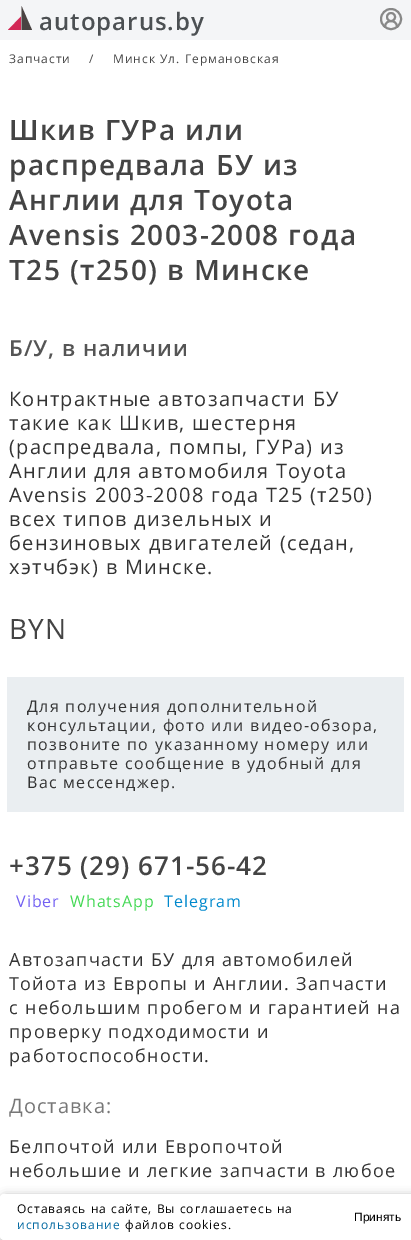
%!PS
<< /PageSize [411 1240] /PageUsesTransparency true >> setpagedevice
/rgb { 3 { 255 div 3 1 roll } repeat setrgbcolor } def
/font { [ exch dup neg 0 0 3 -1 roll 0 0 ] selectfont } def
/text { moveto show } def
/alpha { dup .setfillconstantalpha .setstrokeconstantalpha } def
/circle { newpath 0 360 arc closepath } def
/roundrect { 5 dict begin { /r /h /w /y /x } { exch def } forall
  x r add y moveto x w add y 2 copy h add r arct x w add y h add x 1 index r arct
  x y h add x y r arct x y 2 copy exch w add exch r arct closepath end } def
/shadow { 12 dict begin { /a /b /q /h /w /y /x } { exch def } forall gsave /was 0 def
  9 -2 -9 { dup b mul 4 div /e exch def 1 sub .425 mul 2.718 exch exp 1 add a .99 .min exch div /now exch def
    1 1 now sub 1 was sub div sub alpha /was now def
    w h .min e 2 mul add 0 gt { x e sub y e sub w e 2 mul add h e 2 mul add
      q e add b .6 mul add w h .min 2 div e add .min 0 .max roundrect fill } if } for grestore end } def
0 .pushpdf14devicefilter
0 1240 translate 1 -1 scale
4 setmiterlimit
255 255 255 rgb
0 0 411 1240 rectfill
244 245 247 rgb
0 0 411 40 rectfill
210 40 86 rgb
21 16.5 moveto 0 13.5 rlineto -13 0 rlineto closepath fill
73 66 66 rgb
21.5 6 moveto 10.5 24 rlineto -10.5 0 rlineto closepath fill
136 136 136 rgb
2 setlinewidth
1 setlinecap
1 setlinejoin
397 27 moveto 0 -8 -12 -8 -12 0 rcurveto stroke
0 setlinecap
0 setlinejoin
391 17 4 circle stroke
391 19 10 circle stroke
234 238 241 rgb
7 677 397 135 rectfill
0 0 0 rgb
2 1197 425 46 4 5 0.4 shadow
255 255 255 rgb
0 1194 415 46 4 roundrect fill
/OpenSans-SemiBold 24 font
76 80 83 rgb
39 30 moveto 1 0 (autoparus.by) ashow
/OpenSans-Regular 12 font
68 68 68 rgb
9 63 moveto 1 0 (Запчасти) ashow
89 63 moveto 1 0 (/) ashow
113 63 moveto 1 0 (Минск Ул. Германовская) ashow
/OpenSans-SemiBold 28 font
9 140 moveto 1.4 0 (Шкив ГУРа или) ashow
9 175 moveto 1.4 0 (распредвала БУ из) ashow
9 210 moveto 1.4 0 (Англии для Toyota) ashow
9 245 moveto 1.4 0 (Avensis 2003-2008 года) ashow
9 280 moveto 1.4 0 (Т25 \(т250\) в Минске) ashow
/OpenSans-SemiBold 22 font
85 85 85 rgb
9 356 moveto 1 0 (Б/У, в наличии) ashow
/OpenSans-Regular 20 font
51 51 51 rgb
9 406 moveto 1.3 0 (Контрактные автозапчасти БУ) ashow
9 430 moveto 1.3 0 (такие как Шкив, шестерня) ashow
9 454 moveto 1.3 0 (\(распредвала, помпы, ГУРа\) из) ashow
9 478 moveto 1.3 0 (Англии для автомобиля Toyota) ashow
9 502 moveto 1.3 0 (Avensis 2003-2008 года Т25 \(т250\)) ashow
9 526 moveto 1.3 0 (всех типов дизельных и) ashow
9 550 moveto 1.3 0 (бензиновых двигателей \(седан,) ashow
9 574 moveto 1.3 0 (хэтчбэк\) в Минске.) ashow
/OpenSans-Regular 28 font
68 68 68 rgb
9 639 moveto 1 0 (BYN) ashow
/OpenSans-Regular 16 font
51 51 51 rgb
27 712 moveto 1.3 0 (Для получения дополнительной) ashow
27 731 moveto 1.3 0 (консультации, фото или видео-обзора,) ashow
27 750 moveto 1.3 0 (позвоните по указанному номеру или) ashow
27 769 moveto 1.3 0 (отправьте сообщение в удобный для) ashow
27 788 moveto 1.3 0 (Вас мессенджер.) ashow
/OpenSans-SemiBold 26 font
68 68 68 rgb
9 875 moveto 1 0 (+375 \(29\) 671-56-42) ashow
/OpenSans-Regular 16 font
115 96 242 rgb
16 907 moveto 1 0 (Viber) ashow
67 216 84 rgb
70 907 moveto 1 0 (WhatsApp) ashow
0 136 204 rgb
164 907 moveto 1 0 (Telegram) ashow
/OpenSans-Regular 18 font
51 51 51 rgb
9 966 moveto 1.3 0 (Автозапчасти БУ для автомобилей) ashow
9 990 moveto 1.3 0 (Тойота из Европы и Англии. Запчасти) ashow
9 1014 moveto 1.3 0 (с небольшим пробегом и гарантией на) ashow
9 1038 moveto 1.3 0 (проверку подходимости и) ashow
9 1062 moveto 1.3 0 (работоспособности.) ashow
/OpenSans-Regular 20 font
119 119 119 rgb
9 1113 moveto 1 0 (Доставка:) ashow
/OpenSans-Regular 18 font
51 51 51 rgb
9 1153 moveto 1.3 0 (Белпочтой или Европочтой) ashow
9 1177 moveto 1.3 0 (небольшие и легкие запчасти в любое) ashow
/OpenSans-Regular 12 font
0 0 0 rgb
17 1213 moveto 1 0 (Оставаясь на сайте, Вы соглашаетесь на) ashow
3 105 161 rgb
17 1229 moveto 1 0 (использование) ashow
0 0 0 rgb
125 1229 moveto 1 0 (файлов cookies.) ashow
/LiberationSans-Regular 12 font
(Принять) 354 1221 text
.poppdf14devicefilter showpage
